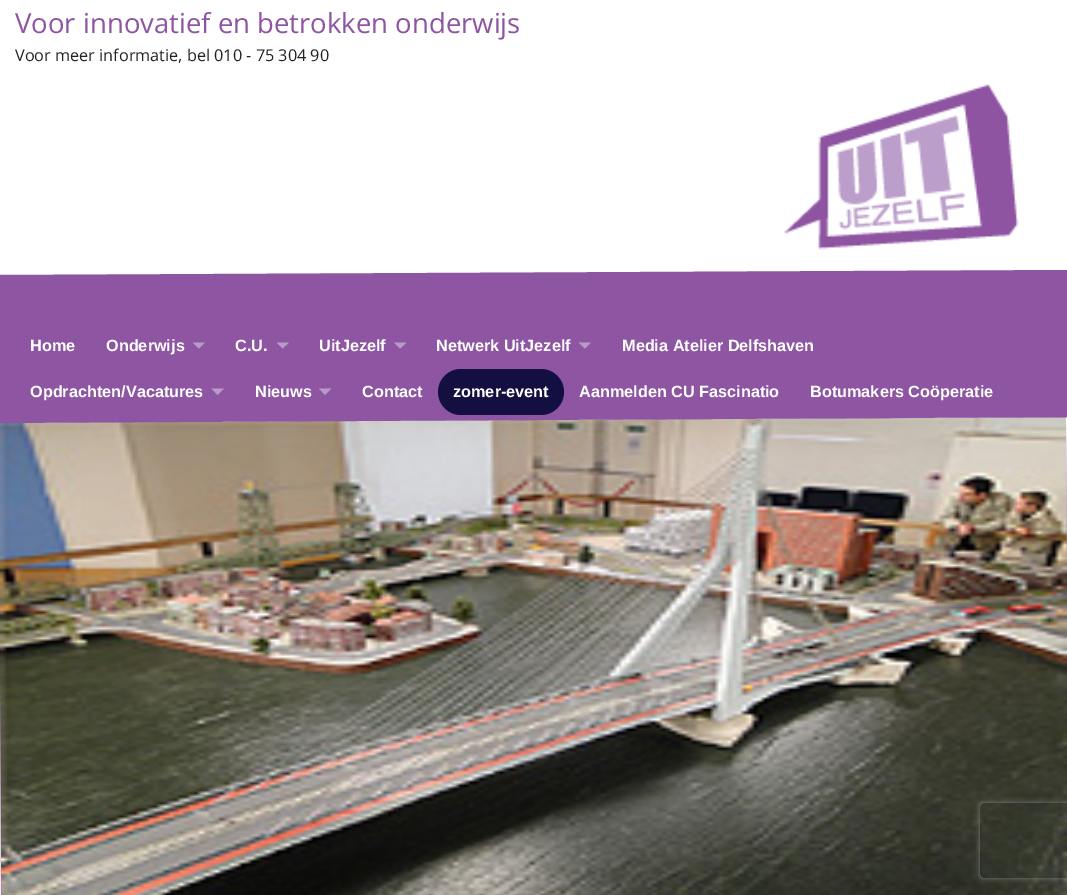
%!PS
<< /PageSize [1067 895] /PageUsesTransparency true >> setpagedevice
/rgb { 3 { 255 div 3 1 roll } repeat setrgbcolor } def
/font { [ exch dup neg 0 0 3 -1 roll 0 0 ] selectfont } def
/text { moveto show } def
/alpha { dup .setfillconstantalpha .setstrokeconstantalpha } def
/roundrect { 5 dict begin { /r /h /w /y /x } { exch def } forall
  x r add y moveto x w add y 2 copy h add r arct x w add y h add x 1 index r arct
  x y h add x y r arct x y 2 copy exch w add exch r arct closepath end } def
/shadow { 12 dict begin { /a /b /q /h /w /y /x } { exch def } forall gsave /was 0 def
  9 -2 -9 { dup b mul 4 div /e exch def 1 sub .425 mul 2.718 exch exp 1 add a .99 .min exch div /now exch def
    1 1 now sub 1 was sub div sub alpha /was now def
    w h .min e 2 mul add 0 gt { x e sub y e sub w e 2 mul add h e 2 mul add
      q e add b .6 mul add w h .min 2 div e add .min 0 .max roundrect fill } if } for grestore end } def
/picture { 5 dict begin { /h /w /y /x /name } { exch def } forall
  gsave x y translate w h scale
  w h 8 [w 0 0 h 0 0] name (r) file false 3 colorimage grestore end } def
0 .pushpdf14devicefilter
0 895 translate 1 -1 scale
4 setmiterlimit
255 255 255 rgb
0 0 1067 895 rectfill
(img_01.rgb) 784 84 235 166 picture
142 85 162 rgb
-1 423 moveto 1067 -6 rlineto 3 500 rlineto -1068 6 rlineto closepath fill
(img_02.rgb) 0 417 1067 478 picture
0 275 moveto 1067 -5 rlineto 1 147 rlineto -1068 6 rlineto closepath fill
187 153 199 rgb
192.5 342.5 moveto 12.5 0 rlineto -6 6 rlineto closepath fill
276.5 342.5 moveto 12.5 0 rlineto -6.5 6 rlineto closepath fill
394 342.5 moveto 12.5 0 rlineto -6.5 6 rlineto closepath fill
578.5 342.5 moveto 12.5 0 rlineto -6 6 rlineto closepath fill
211.5 388.5 moveto 12.5 0 rlineto -6.5 6.5 rlineto closepath fill
319 388.5 moveto 12.5 0 rlineto -6.5 6.5 rlineto closepath fill
19 15 64 rgb
438 369 126 46 23 roundrect fill
gsave
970 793 moveto 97 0 rlineto 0 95 rlineto -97 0 rlineto closepath 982.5 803 moveto 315 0 rlineto 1.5 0 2.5 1 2.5 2.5 rcurveto 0 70 rlineto 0 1.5 -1 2.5 -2.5 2.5 rcurveto -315 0 rlineto -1.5 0 -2.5 -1 -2.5 -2.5 rcurveto 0 -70 rlineto 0 -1.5 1 -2.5 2.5 -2.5 rcurveto closepath eoclip newpath
128 128 128 rgb
980 803 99 75 2.5 3 1 shadow
grestore
/OpenSans-Regular 27.5 font
142 85 162 rgb
(Voor innovatief en betrokken onderwijs) 15 33 text
/OpenSans-Regular 16.25 font
34 34 34 rgb
(Voor meer informatie, bel 010 - 75 304 90) 15 61 text
/LiberationSans-Bold 16.25 font
255 255 255 rgb
(Home) 30 351 text
(Onderwijs) 106 351 text
(C.U.) 235 351 text
(UitJezelf) 319 351 text
(Netwerk UitJezelf) 436 351 text
(Media Atelier Delfshaven) 622 351 text
(Opdrachten/Vacatures) 30 397 text
(Nieuws) 255 397 text
(Contact) 362 397 text
(zomer-event) 453 397 text
(Aanmelden CU Fascinatio) 579 397 text
(Botumakers Coöperatie) 810 397 text
.poppdf14devicefilter showpage
